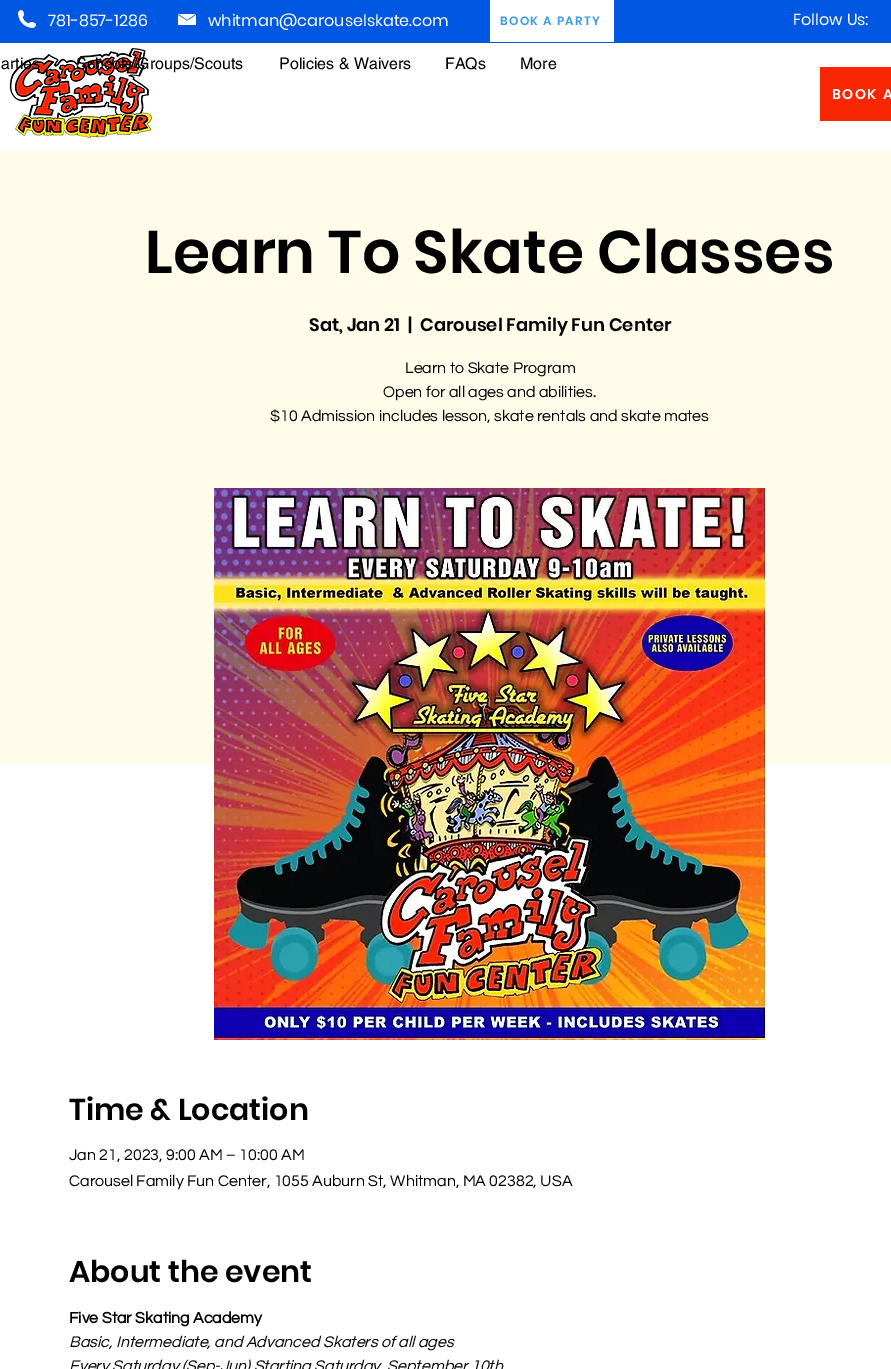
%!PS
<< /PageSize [891 1369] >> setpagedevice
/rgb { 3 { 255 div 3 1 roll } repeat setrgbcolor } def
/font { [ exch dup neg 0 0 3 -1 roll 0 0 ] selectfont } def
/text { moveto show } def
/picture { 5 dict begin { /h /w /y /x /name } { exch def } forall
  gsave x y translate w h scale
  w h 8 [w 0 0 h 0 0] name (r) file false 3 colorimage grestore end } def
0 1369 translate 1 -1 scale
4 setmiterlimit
255 255 255 rgb
0 0 891 1369 rectfill
0 87 225 rgb
0 0 891 43 rectfill
(img_01.rgb) 18 10 18 18 picture
(img_02.rgb) 178 14 18 11 picture
255 255 255 rgb
490 0 124 42 rectfill
(img_03.rgb) 9 47 143 91 picture
248 38 1 rgb
820 67 71 54 rectfill
255 253 233 rgb
0 151 891 613 rectfill
(img_04.rgb) 214 488 552 552 picture
/Poppins-Regular 16 font
255 255 255 rgb
(781-857-1286) 48 26 text
(whitman@carouselskate.com) 208 26 text
/Poppins-SemiBold 12 font
61 155 233 rgb
500 25 moveto 1.25 0 (BOOK A PARTY) ashow
/Poppins-Regular 16 font
255 255 255 rgb
(Follow Us:) 793 25 text
/helvetica-Regular 16 font
0 0 0 rgb
(arties) 1 69 text
(Schools/Groups/Scouts) 76 69 text
(Policies & Waivers) 279 69 text
(FAQs) 445 69 text
(More) 520 69 text
/Poppins-SemiBold 14 font
255 255 255 rgb
832 99 moveto 1.5 0 (BOOK A) ashow
/Poppins-SemiBold 60 font
0 0 0 rgb
(Learn To Skate Classes) 145 273 text
/Poppins-SemiBold 18 font
(Sat, Jan 21) 309 331 text
(|) 408 331 text
(Carousel Family Fun Center) 420 331 text
/Questrial-Regular 16 font
(Learn to Skate Program) 405 373 text
(Open for all ages and abilities.) 383 397 text
($10 Admission includes lesson, skate rentals and skate mates) 270 421 text
/Poppins-SemiBold 30 font
(Time & Location) 69 1120 text
/Questrial-Regular 16 font
(Jan 21, 2023, 9:00 AM – 10:00 AM) 69 1160 text
(Carousel Family Fun Center, 1055 Auburn St, Whitman, MA 02382, USA) 69 1186 text
/Poppins-SemiBold 30 font
(About the event) 69 1282 text
/Questrial-Bold 16 font
(Five Star Skating Academy) 69 1323 text
/Questrial-Italic 16 font
(Basic, Intermediate, and Advanced Skaters of all ages) 69 1347 text
(Every Saturday \(Sep-Jun\) Starting Saturday, September 10th) 69 1371 text
showpage
